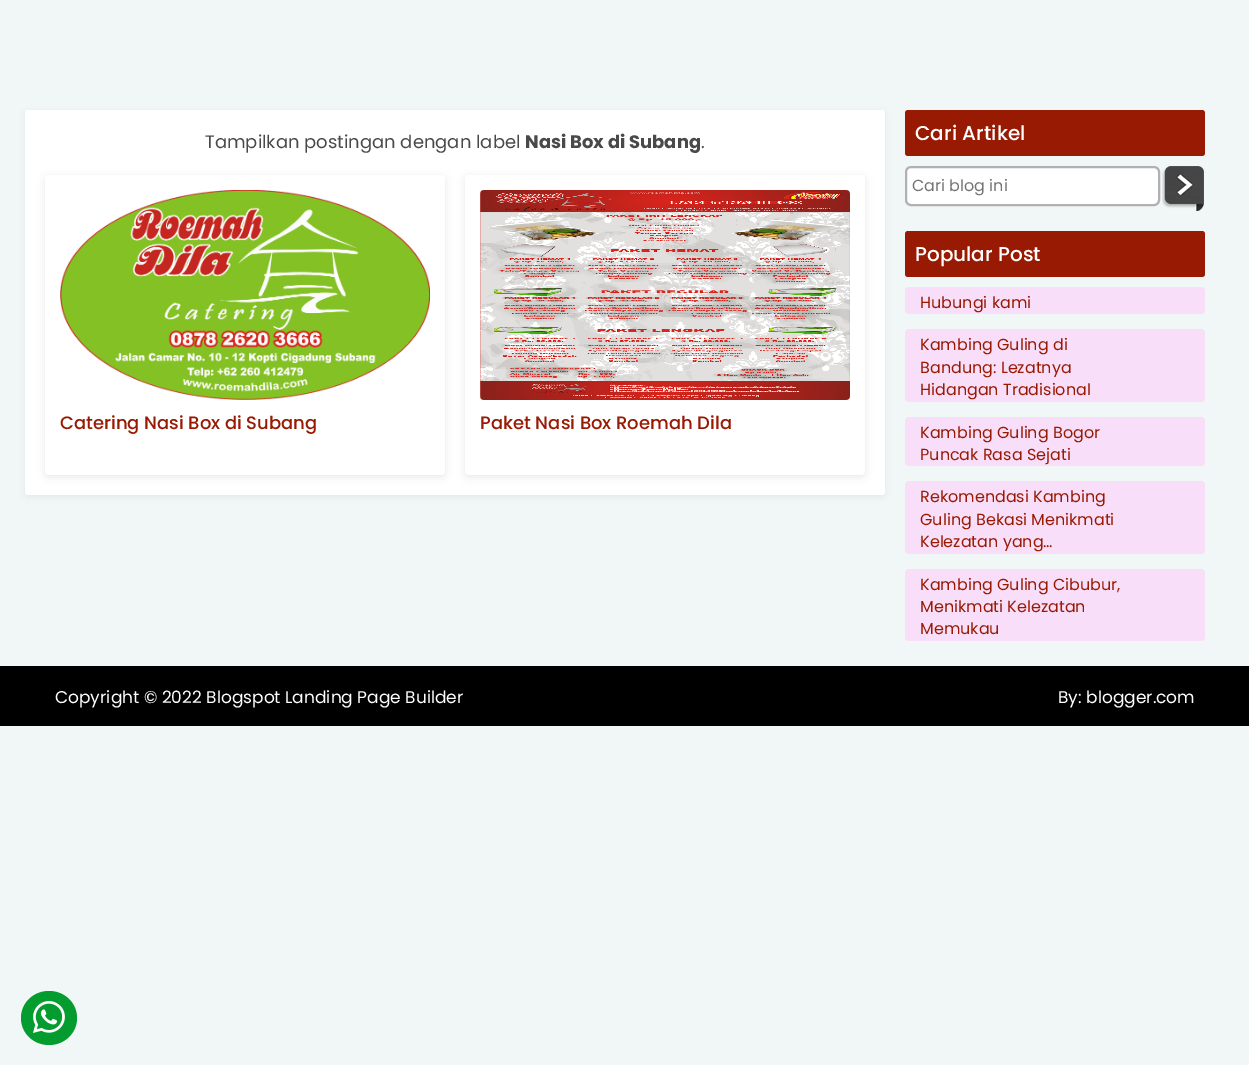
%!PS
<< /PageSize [1249 1065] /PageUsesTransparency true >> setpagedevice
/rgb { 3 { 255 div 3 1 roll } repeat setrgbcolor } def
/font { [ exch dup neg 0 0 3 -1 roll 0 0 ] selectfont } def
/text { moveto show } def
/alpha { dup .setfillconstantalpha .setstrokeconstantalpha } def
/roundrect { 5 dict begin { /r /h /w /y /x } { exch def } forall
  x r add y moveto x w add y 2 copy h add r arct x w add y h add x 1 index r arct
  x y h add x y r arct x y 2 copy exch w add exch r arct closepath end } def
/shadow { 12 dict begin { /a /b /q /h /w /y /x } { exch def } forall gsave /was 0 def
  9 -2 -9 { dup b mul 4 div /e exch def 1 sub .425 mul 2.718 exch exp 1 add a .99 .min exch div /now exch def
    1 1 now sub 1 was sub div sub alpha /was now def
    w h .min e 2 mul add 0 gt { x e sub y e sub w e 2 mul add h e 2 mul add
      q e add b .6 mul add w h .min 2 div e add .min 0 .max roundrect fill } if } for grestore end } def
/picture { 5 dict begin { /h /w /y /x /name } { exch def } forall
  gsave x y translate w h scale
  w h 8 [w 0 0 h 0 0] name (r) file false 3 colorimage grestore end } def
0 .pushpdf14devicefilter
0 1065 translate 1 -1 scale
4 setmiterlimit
241 246 247 rgb
0 0 1249 1065 rectfill
0 0 0 rgb
25 112 860 385 3 4 0.05 shadow
255 255 255 rgb
25 110 860 385 3 roundrect fill
0 0 0 rgb
45 177 400 300 4 4 0.09 shadow
255 255 255 rgb
45 175 400 300 4 roundrect fill
(img_01.rgb) 60 190 370 210 picture
0 0 0 rgb
465 177 400 300 4 4 0.09 shadow
255 255 255 rgb
465 175 400 300 4 roundrect fill
(img_02.rgb) 480 190 370 210 picture
153 26 3 rgb
905 110 300 46 3 roundrect fill
255 255 255 rgb
906 167 253 38 5 roundrect gsave fill grestore
177 177 177 rgb
2 setlinewidth
stroke
(img_03.rgb) 1162 166 42 45 picture
153 26 3 rgb
905 231 300 46 3 roundrect fill
249 222 250 rgb
905 287 300 27 4 roundrect fill
905 329 300 73 4 roundrect fill
905 417 300 49 4 roundrect fill
905 481 300 73 4 roundrect fill
905 569 300 72 4 roundrect fill
0 0 0 rgb
0 666 1249 60 rectfill
4 156 47 rgb
49 991 moveto 15.5 0 28 12 28 27 rcurveto 0 15 -12.5 27 -28 27 rcurveto -15.5 0 -28 -12 -28 -27 rcurveto 0 -15 12.5 -27 28 -27 rcurveto closepath fill
(img_04.rgb) 33 1001 32 32 picture
/Poppins-Regular 18 font
73 73 73 rgb
(Tampilkan postingan dengan label) 205 148 text
/Poppins-Bold 18 font
(Nasi Box di Subang) 525 148 text
/Poppins-Regular 18 font
(.) 701 148 text
/Poppins-Medium 18 font
153 26 3 rgb
(Catering Nasi Box di Subang) 60 429 text
(Paket Nasi Box Roemah Dila) 480 429 text
/Poppins-Medium 20 font
255 255 255 rgb
(Cari Artikel) 915 140 text
/Poppins-Regular 16 font
117 117 117 rgb
(Cari blog ini) 912 191 text
/Poppins-Medium 20 font
255 255 255 rgb
(Popular Post) 915 261 text
/Poppins-Regular 16 font
153 26 3 rgb
(Hubungi kami) 920 308 text
(Kambing Guling di) 920 350 text
(Bandung: Lezatnya) 920 373 text
(Hidangan Tradisional) 920 395 text
(Kambing Guling Bogor) 920 438 text
(Puncak Rasa Sejati) 920 460 text
(Rekomendasi Kambing) 920 502 text
(Guling Bekasi Menikmati) 920 525 text
(Kelezatan yang…) 920 547 text
(Kambing Guling Cibubur,) 920 590 text
(Menikmati Kelezatan) 920 612 text
(Memukau) 920 634 text
/Poppins-Regular 17 font
255 255 255 rgb
(Copyright © 2022 Blogspot Landing Page Builder) 55 703 text
(By: blogger.com) 1058 703 text
.poppdf14devicefilter showpage
